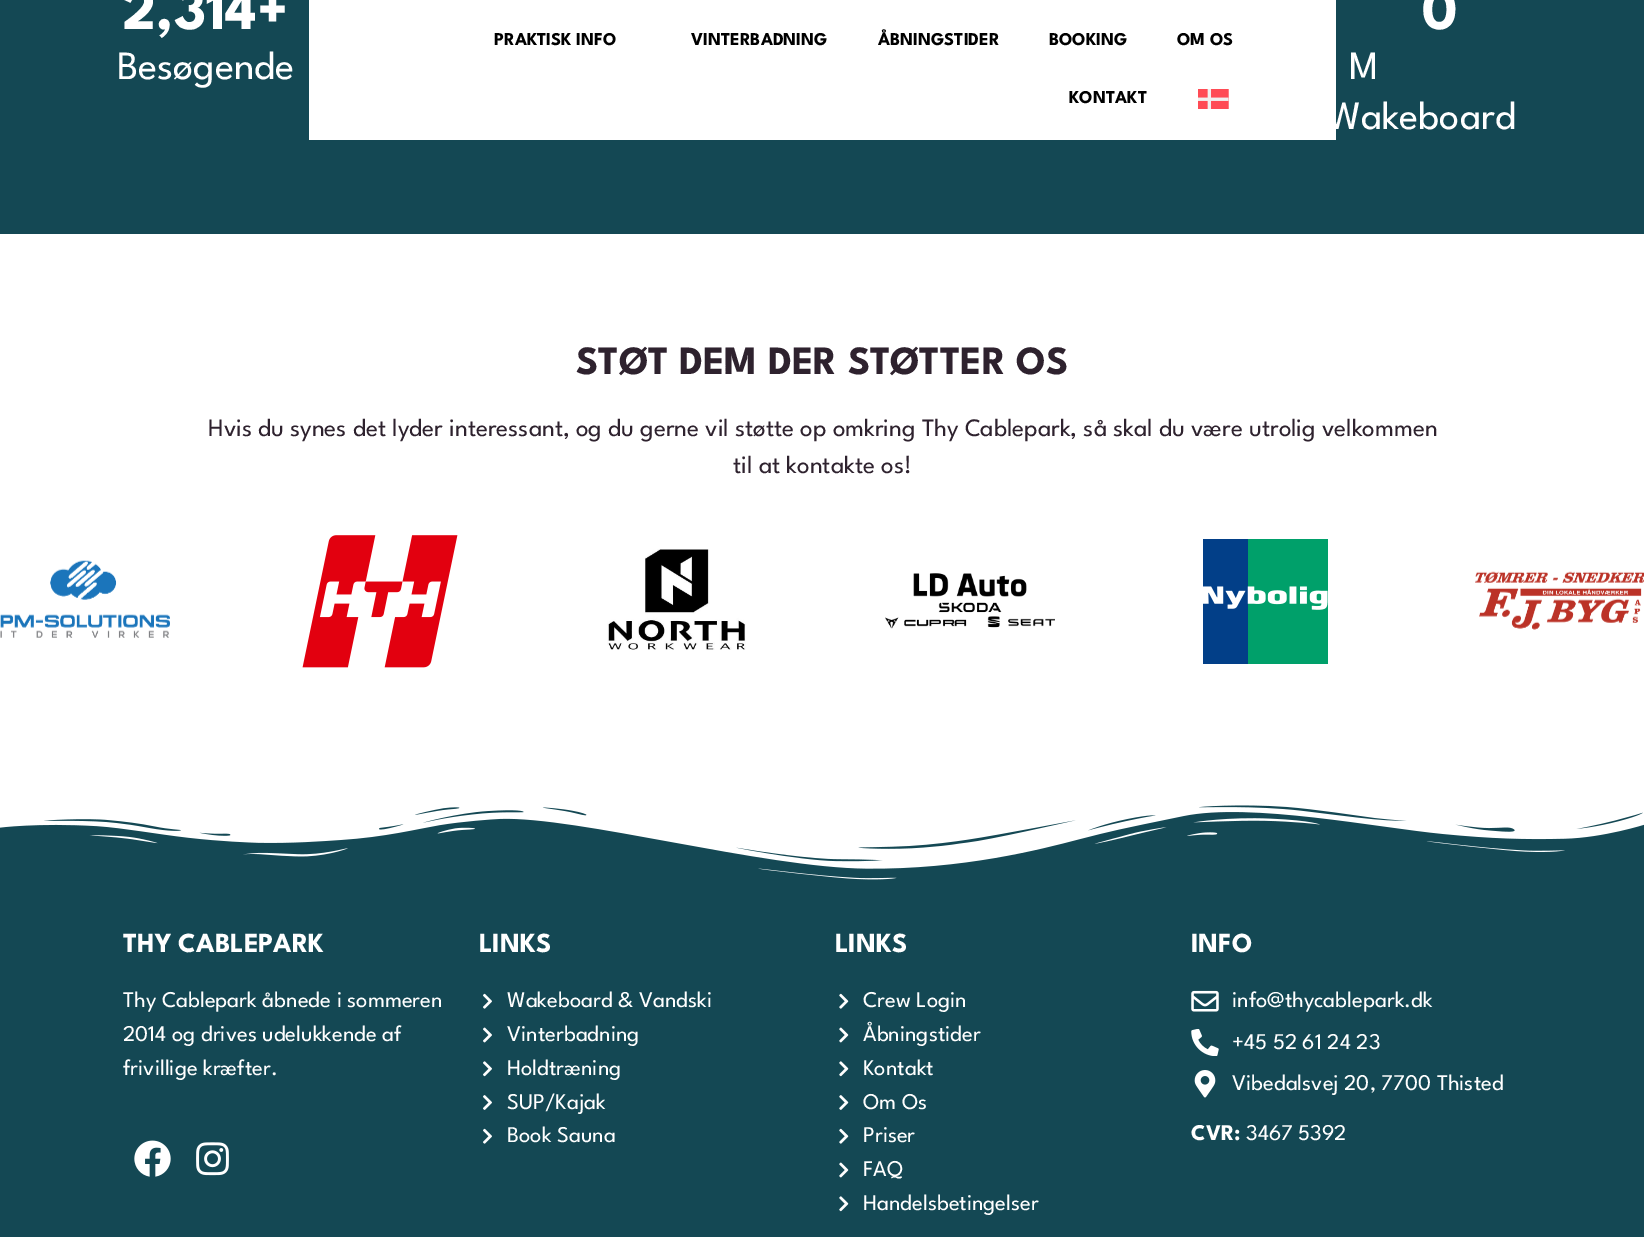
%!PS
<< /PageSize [1644 1237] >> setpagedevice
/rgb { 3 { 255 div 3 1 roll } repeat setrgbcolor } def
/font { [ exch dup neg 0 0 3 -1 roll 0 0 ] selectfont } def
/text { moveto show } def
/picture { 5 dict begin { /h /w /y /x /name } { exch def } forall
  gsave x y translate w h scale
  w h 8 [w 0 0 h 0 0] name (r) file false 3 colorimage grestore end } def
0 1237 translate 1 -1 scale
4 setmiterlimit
255 255 255 rgb
0 0 1644 1237 rectfill
20 72 84 rgb
0 0 1644 234 rectfill
(img_01.rgb) 0 560 170 78 picture
(img_02.rgb) 302 535 156 133 picture
(img_03.rgb) 607 549 139 101 picture
(img_04.rgb) 885 573 170 56 picture
(img_05.rgb) 1203 539 125 125 picture
(img_06.rgb) 1475 571 169 59 picture
255 255 255 rgb
309 0 1027 140 rectfill
(img_07.rgb) 1198 89 31 20 picture
20 72 84 rgb
0 805 1644 432 rectfill
(img_08.rgb) 0 795 1644 85 picture
(img_09.rgb) 134 1140 37 37 picture
(img_10.rgb) 196 1142 33 34 picture
(img_11.rgb) 483 993 9 16 picture
(img_12.rgb) 483 1027 9 16 picture
(img_13.rgb) 483 1061 9 16 picture
(img_14.rgb) 483 1095 9 15 picture
(img_11.rgb) 483 1128 9 16 picture
(img_15.rgb) 839 993 10 16 picture
(img_16.rgb) 839 1027 10 16 picture
(img_17.rgb) 839 1061 10 16 picture
(img_18.rgb) 839 1095 10 15 picture
(img_15.rgb) 839 1128 10 16 picture
(img_16.rgb) 839 1162 10 16 picture
(img_17.rgb) 839 1196 10 16 picture
(img_19.rgb) 1191 990 28 22 picture
(img_20.rgb) 1191 1029 28 27 picture
(img_21.rgb) 1194 1070 22 28 picture
/LeagueSpartan-Bold 60 font
255 255 255 rgb
(2,314+) 122 29 text
/LeagueSpartan-Regular 40 font
(Besøgende) 117 79 text
/LeagueSpartan-Bold 60 font
(0) 1422 29 text
/LeagueSpartan-Regular 40 font
(M) 1349 79 text
(Wakeboard) 1328 129 text
/LeagueSpartan-Bold 40 font
46 34 46 rgb
(STØT DEM DER STØTTER OS) 576 374 text
/LeagueSpartan-Regular 25 font
(Hvis du synes det lyder interessant, og du gerne vil støtte op omkring Thy Cablepark, så skal du være utrolig velkommen) 208 436 text
(til at kontakte os!) 733 473 text
/LeagueSpartan-Bold 18 font
0 0 0 rgb
(PRAKTISK INFO) 494 45 text
(VINTERBADNING) 691 45 text
(ÅBNINGSTIDER) 878 45 text
(BOOKING) 1049 45 text
(OM OS) 1177 45 text
(KONTAKT) 1069 103 text
/LeagueSpartan-Bold 27.5 font
255 255 255 rgb
(THY CABLEPARK) 123 952 text
/LeagueSpartan-Regular 22.5 font
(Thy Cablepark åbnede i sommeren) 123 1007 text
(2014 og drives udelukkende af) 123 1041 text
(frivillige kræfter.) 123 1075 text
/LeagueSpartan-Bold 27.5 font
(LINKS) 479 952 text
/LeagueSpartan-Regular 22.5 font
(Wakeboard & Vandski) 507 1007 text
(Vinterbadning) 507 1041 text
(Holdtræning) 507 1075 text
(SUP/Kajak) 507 1109 text
(Book Sauna) 507 1142 text
/LeagueSpartan-Bold 27.5 font
(LINKS) 835 952 text
/LeagueSpartan-Regular 22.5 font
(Crew Login) 863 1007 text
(Åbningstider) 863 1041 text
(Kontakt) 863 1075 text
(Om Os) 863 1109 text
(Priser) 863 1142 text
(FAQ) 863 1176 text
(Handelsbetingelser) 863 1210 text
/LeagueSpartan-Bold 27.5 font
(INFO) 1191 952 text
/LeagueSpartan-Regular 22.5 font
(info@thycablepark.dk) 1232 1007 text
(+45 52 61 24 23) 1232 1049 text
(Vibedalsvej 20, 7700 Thisted) 1232 1090 text
/LeagueSpartan-Bold 22.5 font
(CVR:) 1191 1140 text
/LeagueSpartan-Regular 22.5 font
(3467 5392) 1246 1140 text
showpage
